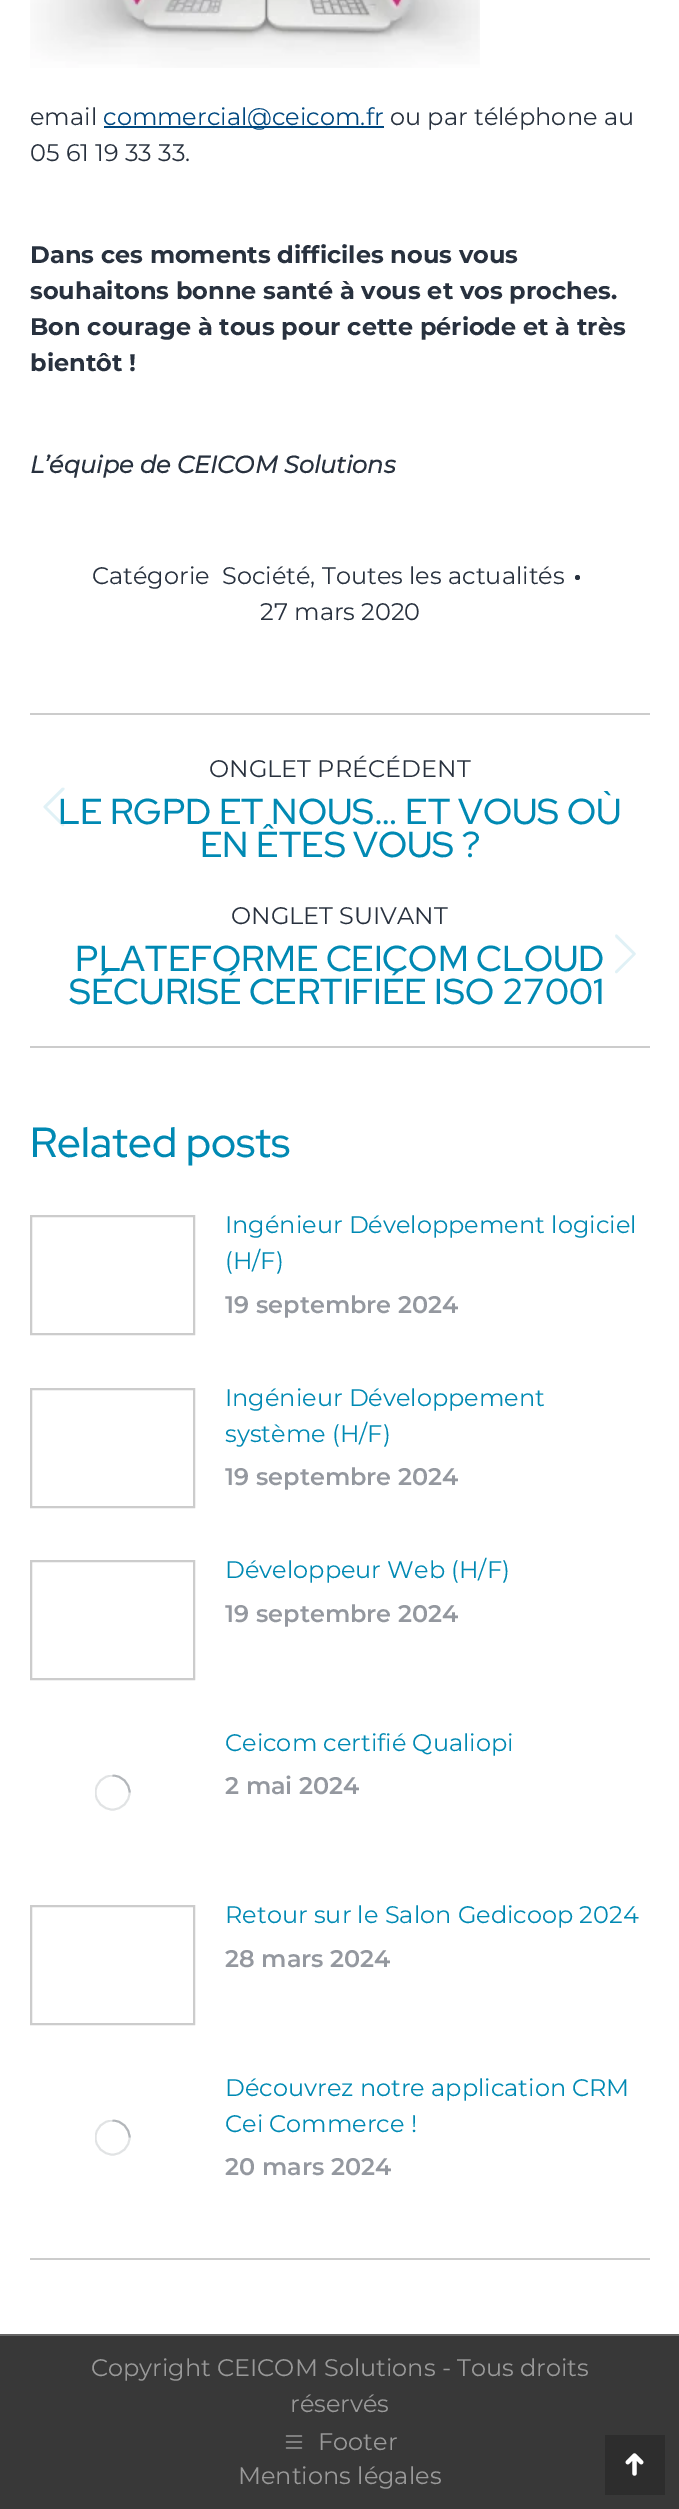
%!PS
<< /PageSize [679 2509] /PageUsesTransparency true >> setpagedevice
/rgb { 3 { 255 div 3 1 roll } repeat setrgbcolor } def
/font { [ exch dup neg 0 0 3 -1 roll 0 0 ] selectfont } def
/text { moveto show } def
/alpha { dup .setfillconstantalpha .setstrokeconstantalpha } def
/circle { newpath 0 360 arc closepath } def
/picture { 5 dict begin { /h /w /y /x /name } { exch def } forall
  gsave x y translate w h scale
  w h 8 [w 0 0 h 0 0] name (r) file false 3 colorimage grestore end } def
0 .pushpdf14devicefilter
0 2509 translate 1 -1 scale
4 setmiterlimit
255 255 255 rgb
0 0 679 2509 rectfill
(img_01.rgb) 30 0 450 68 picture
0 72 128 rgb
104 126 280 2 rectfill
40 49 62 rgb
577.5 577.5 2.5 circle fill
204 204 204 rgb
30 713 620 2 rectfill
30 1046 620 2 rectfill
(img_03.rgb) 615 934 21 40 picture
30 2258 620 2 rectfill
2 setlinewidth
31 1216 163 118 rectstroke
31 1389 163 118 rectstroke
31 1561 163 118 rectstroke
gsave
95 1775 36 36 rectclip
225 227 228 rgb
1.9 setlinewidth
112.5 1792.5 17 circle stroke
grestore
0.25 alpha
40 49 62 rgb
1.9 setlinewidth
129.5 1792.5 moveto 0 -9.5 -7.5 -17 -17 -17 rcurveto stroke
1 alpha
204 204 204 rgb
2 setlinewidth
31 1906 163 118 rectstroke
gsave
95 2120 36 36 rectclip
225 227 228 rgb
1.9 setlinewidth
112.5 2137.5 17 circle stroke
grestore
0.25 alpha
40 49 62 rgb
1.9 setlinewidth
129.5 2137.5 moveto 0 -9.5 -7.5 -17 -17 -17 rcurveto stroke
1 alpha
102 102 102 rgb
0 2334 679 2 rectfill
56 56 56 rgb
0 2336 679 173 rectfill
(img_04.rgb) 285 2435 18 14 picture
45 45 45 rgb
605 2435 60 60 rectfill
(img_05.rgb) 625 2453 19 23 picture
/Montserrat-Regular 24 font
40 49 62 rgb
(email) 30 125 text
0 72 128 rgb
(commercial@ceicom.fr) 103 125 text
40 49 62 rgb
(ou par téléphone au) 390 125 text
(05 61 19 33 33.) 30 161 text
/Montserrat-Bold 24 font
(Dans ces moments difficiles nous vous) 30 263 text
(souhaitons bonne santé à vous et vos proches.) 30 299 text
(Bon courage à tous pour cette période et à très) 30 335 text
(bientôt !) 30 371 text
/Montserrat-BoldItalic 24 font
(L’équipe de CEICOM Solutions) 30 473 text
/Montserrat-Regular 24 font
(Catégorie) 92 584 text
(Société, Toutes les actualités) 222 584 text
(27 mars 2020) 260 620 text
(ONGLET PRÉCÉDENT) 209 777 text
/RedHatDisplay-Medium 36 font
0 137 179 rgb
(LE RGPD ET NOUS… ET VOUS OÙ) 58 824 text
(img_02.rgb) 43 787 22 40 picture
(EN ÊTES VOUS ?) 200 857 text
/Montserrat-Regular 24 font
40 49 62 rgb
(ONGLET SUIVANT) 231 924 text
/RedHatDisplay-Medium 36 font
0 137 179 rgb
(PLATEFORME CEICOM CLOUD) 75 971 text
(SÉCURISÉ CERTIFIÉE ISO 27001) 69 1004 text
/RedHatDisplay-Medium 42 font
(Related posts) 30 1157 text
/Montserrat-Regular 24 font
(Ingénieur Développement logiciel) 225 1233 text
(\(H/F\)) 225 1269 text
/Montserrat-SemiBold 24 font
148 152 159 rgb
(19 septembre 2024) 225 1313 text
/Montserrat-Regular 24 font
0 137 179 rgb
(Ingénieur Développement) 225 1406 text
(système \(H/F\)) 225 1442 text
/Montserrat-SemiBold 24 font
148 152 159 rgb
(19 septembre 2024) 225 1485 text
/Montserrat-Regular 24 font
0 137 179 rgb
(Développeur Web \(H/F\)) 225 1578 text
/Montserrat-SemiBold 24 font
148 152 159 rgb
(19 septembre 2024) 225 1622 text
/Montserrat-Regular 24 font
0 137 179 rgb
(Ceicom certifié Qualiopi) 225 1751 text
/Montserrat-SemiBold 24 font
148 152 159 rgb
(2 mai 2024) 225 1794 text
/Montserrat-Regular 24 font
0 137 179 rgb
(Retour sur le Salon Gedicoop 2024) 225 1923 text
/Montserrat-SemiBold 24 font
148 152 159 rgb
(28 mars 2024) 225 1967 text
/Montserrat-Regular 24 font
0 137 179 rgb
(Découvrez notre application CRM) 225 2096 text
(Cei Commerce !) 225 2132 text
/Montserrat-SemiBold 24 font
148 152 159 rgb
(20 mars 2024) 225 2175 text
/Montserrat-Regular 24 font
153 153 153 rgb
(Copyright CEICOM Solutions - Tous droits) 91 2376 text
(réservés) 290 2412 text
(Footer) 318 2450 text
(Mentions légales) 238 2484 text
.poppdf14devicefilter showpage
